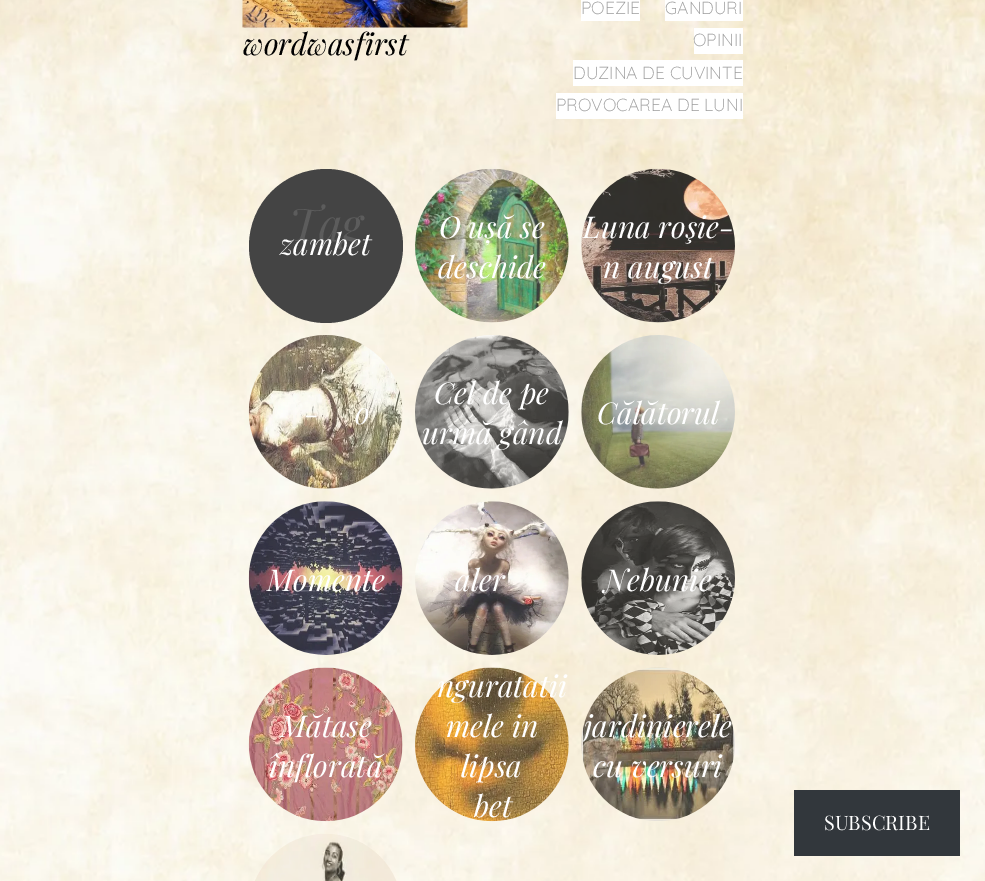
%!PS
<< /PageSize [985 881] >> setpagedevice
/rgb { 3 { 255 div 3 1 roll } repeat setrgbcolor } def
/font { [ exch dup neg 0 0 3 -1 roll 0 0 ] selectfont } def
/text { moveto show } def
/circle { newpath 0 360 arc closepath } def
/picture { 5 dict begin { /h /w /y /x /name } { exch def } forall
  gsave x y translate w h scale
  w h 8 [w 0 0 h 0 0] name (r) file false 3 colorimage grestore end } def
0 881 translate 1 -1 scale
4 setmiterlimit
255 255 255 rgb
0 0 985 881 rectfill
(img_01.rgb) 0 0 985 881 picture
(img_02.rgb) 242 0 226 28 picture
581 0 59 21 rectfill
665 0 78 21 rectfill
694 28 49 26 rectfill
573 60 170 26 rectfill
556 93 187 26 rectfill
68 68 68 rgb
326 246 77 circle fill
(img_03.rgb) 415 169 154 154 picture
(img_04.rgb) 581 168 154 155 picture
(img_05.rgb) 248 335 155 154 picture
(img_06.rgb) 415 335 154 154 picture
(img_07.rgb) 581 335 154 154 picture
(img_08.rgb) 248 501 155 154 picture
(img_09.rgb) 415 501 154 154 picture
(img_10.rgb) 581 501 154 154 picture
(img_11.rgb) 248 667 155 155 picture
(img_12.rgb) 415 667 154 155 picture
(img_13.rgb) 581 667 154 154 picture
(img_14.rgb) 255 834 142 47 picture
50 55 60 rgb
794 790 166 66 rectfill
/PlayfairDisplay-Italic 30 font
0 0 0 rgb
(wordwasfirst) 243 55 text
/Quicksand-Light 17.5 font
153 153 153 rgb
(POEZIE) 581 14 text
(GANDURI) 665 14 text
(OPINII) 693 46 text
(DUZINA DE CUVINTE) 573 79 text
(PROVOCAREA DE LUNI) 556 111 text
/PlayfairDisplay-Italic 45 font
92 92 92 rgb
(Tag) 289 241 text
/PlayfairDisplay-Italic 30 font
255 255 255 rgb
(zambet) 280 255 text
(O ușă se) 439 238 text
(deschide) 438 278 text
(Luna roşie-) 583 238 text
(n august) 603 278 text
(-) 304 424 text
(o) 355 424 text
(Cel de pe) 434 404 text
(urmă gând) 422 444 text
(Călătorul) 597 424 text
(Momente) 267 591 text
(aler) 455 591 text
(Nebunie) 604 591 text
(Mătase) 280 737 text
(înflorată) 269 777 text
(nguratatii) 437 697 text
(mele in) 446 737 text
(lipsa) 461 777 text
(bet) 474 817 text
gsave
583 705 153 80 rectclip
(jardinierele) 584 737 text
grestore
(cu versuri) 593 777 text
/PlayfairDisplay-Regular 20 font
(SUBSCRIBE) 824 830 text
showpage
